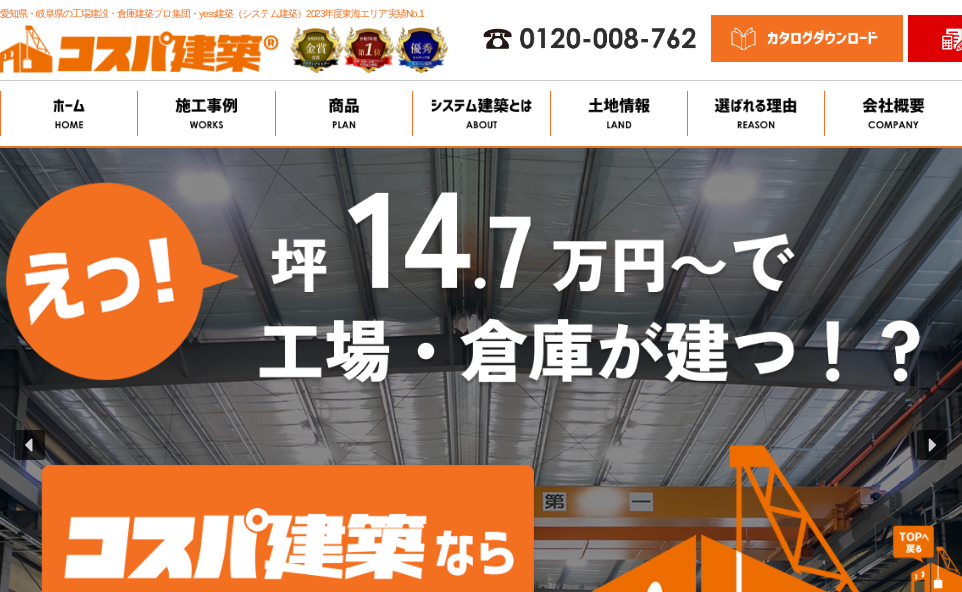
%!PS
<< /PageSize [962 592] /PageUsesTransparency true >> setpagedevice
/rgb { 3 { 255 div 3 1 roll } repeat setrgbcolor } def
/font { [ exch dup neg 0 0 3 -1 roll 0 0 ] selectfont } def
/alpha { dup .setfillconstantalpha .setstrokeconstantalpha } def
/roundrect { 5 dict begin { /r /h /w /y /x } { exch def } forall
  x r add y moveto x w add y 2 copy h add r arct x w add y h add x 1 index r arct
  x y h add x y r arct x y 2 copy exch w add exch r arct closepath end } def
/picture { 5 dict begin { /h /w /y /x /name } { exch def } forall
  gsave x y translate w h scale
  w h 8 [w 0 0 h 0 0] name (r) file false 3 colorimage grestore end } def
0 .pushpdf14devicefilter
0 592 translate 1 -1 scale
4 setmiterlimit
255 255 255 rgb
0 0 962 592 rectfill
(img_01.rgb) 0 25 449 48 picture
(img_02.rgb) 483 27 213 22 picture
(img_03.rgb) 711 15 192 47 picture
(img_04.rgb) 908 15 54 47 picture
204 204 204 rgb
0 80 962 1 rectfill
243 112 32 rgb
0 146 962 2 rectfill
137 91 1 45 rectfill
0 91 1 45 rectfill
(img_05.rgb) 53 98 32 31 picture
275 91 1 45 rectfill
(img_06.rgb) 175 98 62 31 picture
412 91 1 45 rectfill
(img_07.rgb) 329 98 30 31 picture
550 91 1 45 rectfill
(img_08.rgb) 431 97 101 32 picture
687 91 1 45 rectfill
(img_09.rgb) 588 98 63 31 picture
824 91 1 45 rectfill
(img_10.rgb) 714 98 83 31 picture
(img_11.rgb) 862 97 63 32 picture
(img_12.rgb) 0 148 962 444 picture
0.67 alpha
0 0 0 rgb
15 430 30 30 3 roundrect fill
1 alpha
(img_13.rgb) 25 438 8 14 picture
0.67 alpha
917 430 30 30 3 roundrect fill
1 alpha
(img_14.rgb) 928 438 8 14 picture
(img_15.rgb) 893 525 69 67 picture
/WenQuanYiZenHei-Medium 10 font
243 112 32 rgb
0 17 moveto -1 0 (愛知県・岐阜県の工場建設・倉庫建築プロ集団・) ashow
/LiberationSans-Regular 10 font
199 17 moveto -1 0 (yess) ashow
/WenQuanYiZenHei-Medium 10 font
215 17 moveto -1 0 (建築（システム建築）) ashow
/LiberationSans-Regular 10 font
306 17 moveto -1 0 (2023) ashow
/WenQuanYiZenHei-Medium 10 font
324 17 moveto -1 0 (年度東海エリア実績) ashow
/LiberationSans-Regular 10 font
406 17 moveto -1 0 (No.1) ashow
.poppdf14devicefilter showpage
